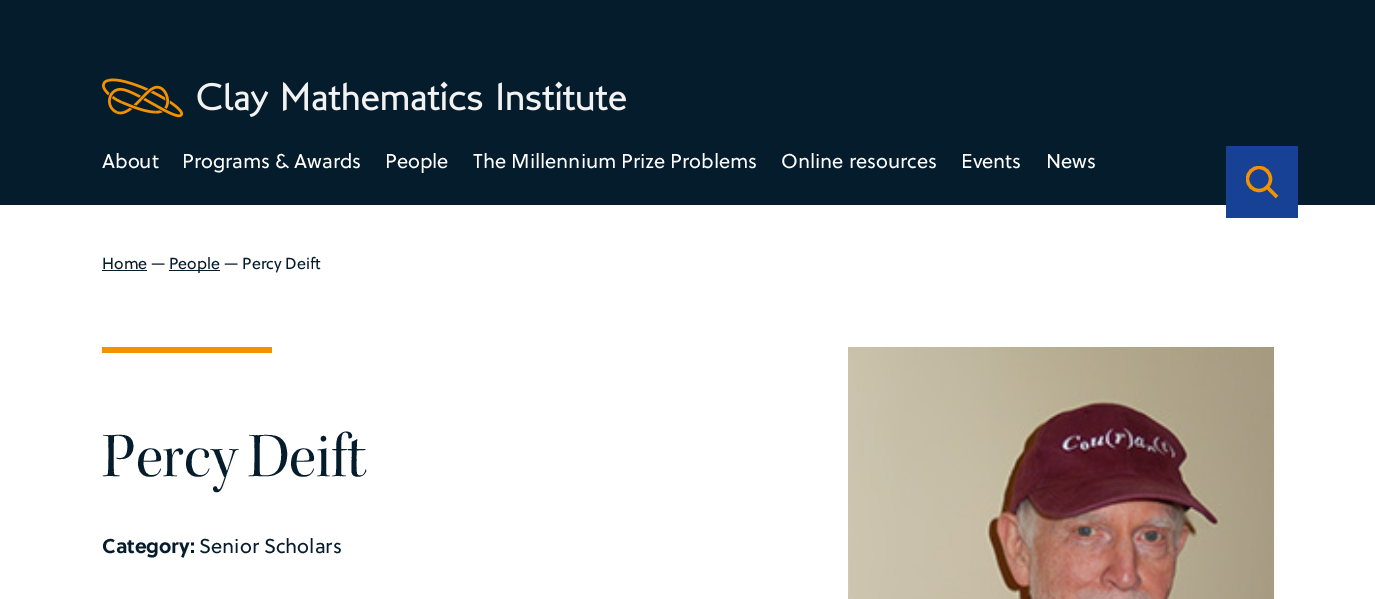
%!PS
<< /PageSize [1375 599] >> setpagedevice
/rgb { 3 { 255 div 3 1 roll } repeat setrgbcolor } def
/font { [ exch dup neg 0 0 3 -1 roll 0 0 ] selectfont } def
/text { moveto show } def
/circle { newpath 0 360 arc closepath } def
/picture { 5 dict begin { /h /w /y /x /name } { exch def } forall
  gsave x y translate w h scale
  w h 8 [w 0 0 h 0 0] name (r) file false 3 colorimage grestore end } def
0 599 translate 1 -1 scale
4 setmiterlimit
255 255 255 rgb
0 0 1375 599 rectfill
5 28 44 rgb
0 0 1375 205 rectfill
(img_01.rgb) 102 78 524 40 picture
22 65 148 rgb
1226 146 72 72 rectfill
gsave
1246 166 32 32 rectclip
243 146 0 rgb
3.3 setlinewidth
1259 179 11.5 circle stroke
grestore
243 146 0 rgb
3.3 setlinewidth
1267.5 187.5 moveto 9.5 9.5 rlineto stroke
5 28 44 rgb
102 270 45 1 rectfill
169 270 51 1 rectfill
243 146 0 rgb
102 347 170 6 rectfill
(img_02.rgb) 848 347 426 252 picture
/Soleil-Regular 20 font
255 255 255 rgb
(About) 102 168 text
(Programs & Awards) 182 168 text
(People) 385 168 text
(The Millennium Prize Problems) 473 168 text
(Online resources) 781 168 text
(Events) 961 168 text
(News) 1046 168 text
/Soleil-Regular 16 font
5 28 44 rgb
(Home —) 102 269 text
(People — Percy Deift) 169 269 text
/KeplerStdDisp-Regular 64 font
(Percy Deift) 102 476 text
/Soleil-Bold 20 font
(Category:) 102 553 text
/Soleil-Regular 20 font
(Senior Scholars) 199 553 text
showpage
